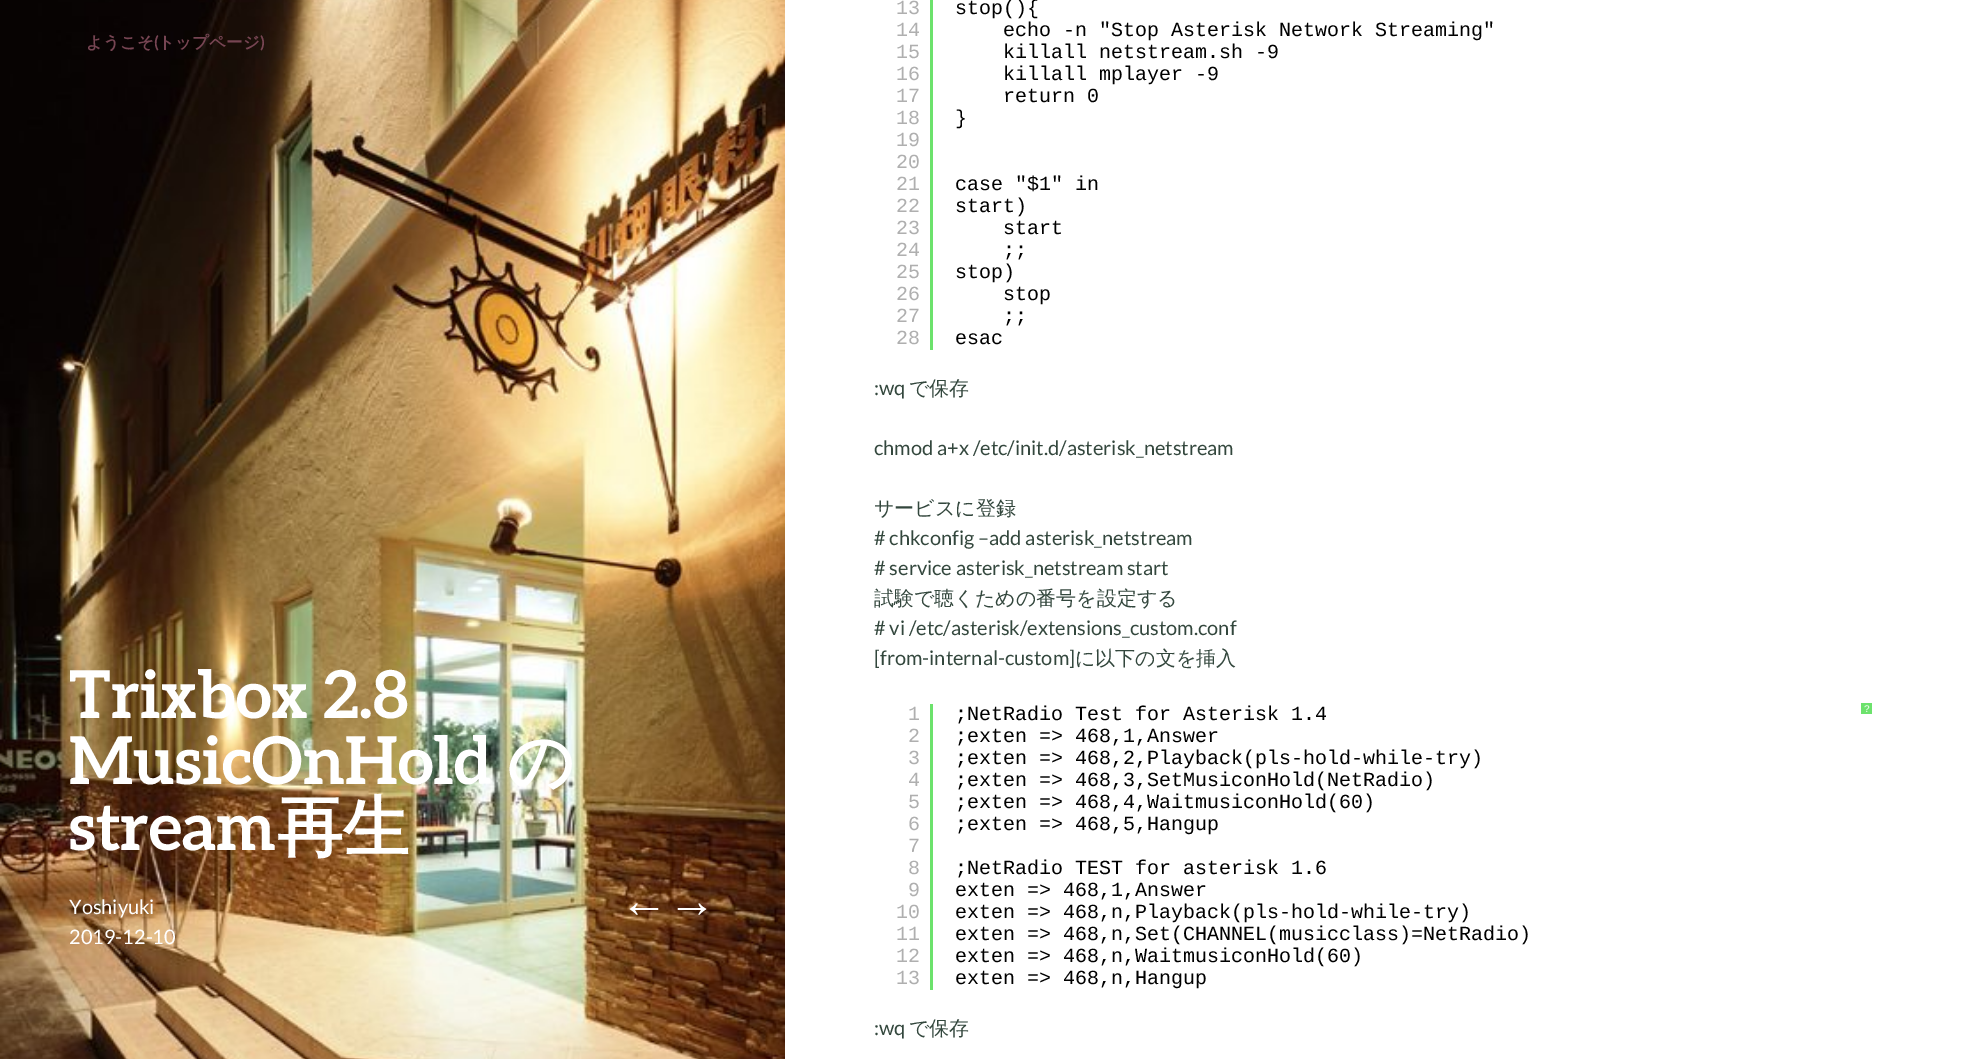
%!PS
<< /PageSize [1962 1059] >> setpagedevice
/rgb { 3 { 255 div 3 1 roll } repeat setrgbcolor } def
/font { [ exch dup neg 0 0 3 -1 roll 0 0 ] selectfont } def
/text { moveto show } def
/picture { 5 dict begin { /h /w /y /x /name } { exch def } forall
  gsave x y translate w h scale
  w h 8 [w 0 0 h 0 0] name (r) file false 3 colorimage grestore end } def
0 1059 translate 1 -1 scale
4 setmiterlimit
255 255 255 rgb
0 0 1962 1059 rectfill
108 226 108 rgb
930 0 3 350 rectfill
930 704 3 286 rectfill
1861 703 11 11 rectfill
(img_01.rgb) 0 0 785 1059 picture
/WenQuanYiZenHei-Bold 16.5 font
119 69 83 rgb
(ようこそ トップページ) 86 48 text
/Lato-Bold 16.5 font
(\() 154 48 text
(\)) 260 48 text
/LiberationMono-Regular 20 font
175 175 175 rgb
(13) 896 14 text
(14) 896 36 text
(15) 896 58 text
(16) 896 80 text
(17) 896 102 text
(18) 896 124 text
(19) 896 146 text
(20) 896 168 text
(21) 896 190 text
(22) 896 212 text
(23) 896 234 text
(24) 896 256 text
(25) 896 278 text
(26) 896 300 text
(27) 896 322 text
(28) 896 344 text
0 0 0 rgb
(stop\(\){) 955 14 text
(echo -n "Stop Asterisk Network Streaming") 1003 36 text
(killall netstream.sh -9) 1003 58 text
(killall mplayer -9) 1003 80 text
(return 0) 1003 102 text
(}) 955 124 text
(case "$1" in) 955 190 text
(start\)) 955 212 text
(start) 1003 234 text
(;;) 1003 256 text
(stop\)) 955 278 text
(stop) 1003 300 text
(;;) 1003 322 text
(esac) 955 344 text
/Lato-Regular 20 font
51 71 61 rgb
(:wq) 874 395 text
/WenQuanYiZenHei-Medium 20 font
(で保存) 909 395 text
/Lato-Regular 20 font
(chmod a+x /etc/init.d/asterisk_netstream) 874 455 text
/WenQuanYiZenHei-Medium 20 font
(サービスに登録) 874 515 text
/Lato-Regular 20 font
(# chkconfig –add asterisk_netstream) 874 545 text
(# service asterisk_netstream start) 874 575 text
/WenQuanYiZenHei-Medium 20 font
(試験で聴くための番号を設定する) 874 605 text
/Lato-Regular 20 font
(# vi /etc/asterisk/extensions_custom.conf) 874 635 text
([from-internal-custom]) 874 665 text
/WenQuanYiZenHei-Medium 20 font
(に以下の文を挿入) 1075 665 text
/LiberationMono-Regular 20 font
175 175 175 rgb
(1) 908 720 text
(2) 908 742 text
(3) 908 764 text
(4) 908 786 text
(5) 908 808 text
(6) 908 830 text
(7) 908 852 text
(8) 908 874 text
(9) 908 896 text
(10) 896 918 text
(11) 896 940 text
(12) 896 962 text
(13) 896 984 text
0 0 0 rgb
(;NetRadio Test for Asterisk 1.4) 955 720 text
(;exten => 468,1,Answer) 955 742 text
(;exten => 468,2,Playback\(pls-hold-while-try\)) 955 764 text
(;exten => 468,3,SetMusiconHold\(NetRadio\)) 955 786 text
(;exten => 468,4,WaitmusiconHold\(60\)) 955 808 text
(;exten => 468,5,Hangup) 955 830 text
(;NetRadio TEST for asterisk 1.6) 955 874 text
(exten => 468,1,Answer) 955 896 text
(exten => 468,n,Playback\(pls-hold-while-try\)) 955 918 text
(exten => 468,n,Set\(CHANNEL\(musicclass\)=NetRadio\)) 955 940 text
(exten => 468,n,WaitmusiconHold\(60\)) 955 962 text
(exten => 468,n,Hangup) 955 984 text
/LiberationMono-Regular 10 font
255 255 255 rgb
(?) 1864 712 text
/Lato-Regular 20 font
51 71 61 rgb
(:wq) 874 1035 text
/WenQuanYiZenHei-Medium 20 font
(で保存) 909 1035 text
/Aleo-Bold 66 font
255 255 255 rgb
(Trixbox 2.8) 69 718 text
(MusicOnHold) 69 784 text
/WenQuanYiZenHei-Bold 66 font
(の) 507 784 text
/Aleo-Bold 66 font
(stream) 69 850 text
/WenQuanYiZenHei-Bold 66 font
(再生) 277 850 text
/Lato-Regular 20 font
(Yoshiyuki) 69 914 text
(2019-12-10) 69 944 text
/LiberationSans-Bold 48 font
(←→) 620 917 text
showpage
